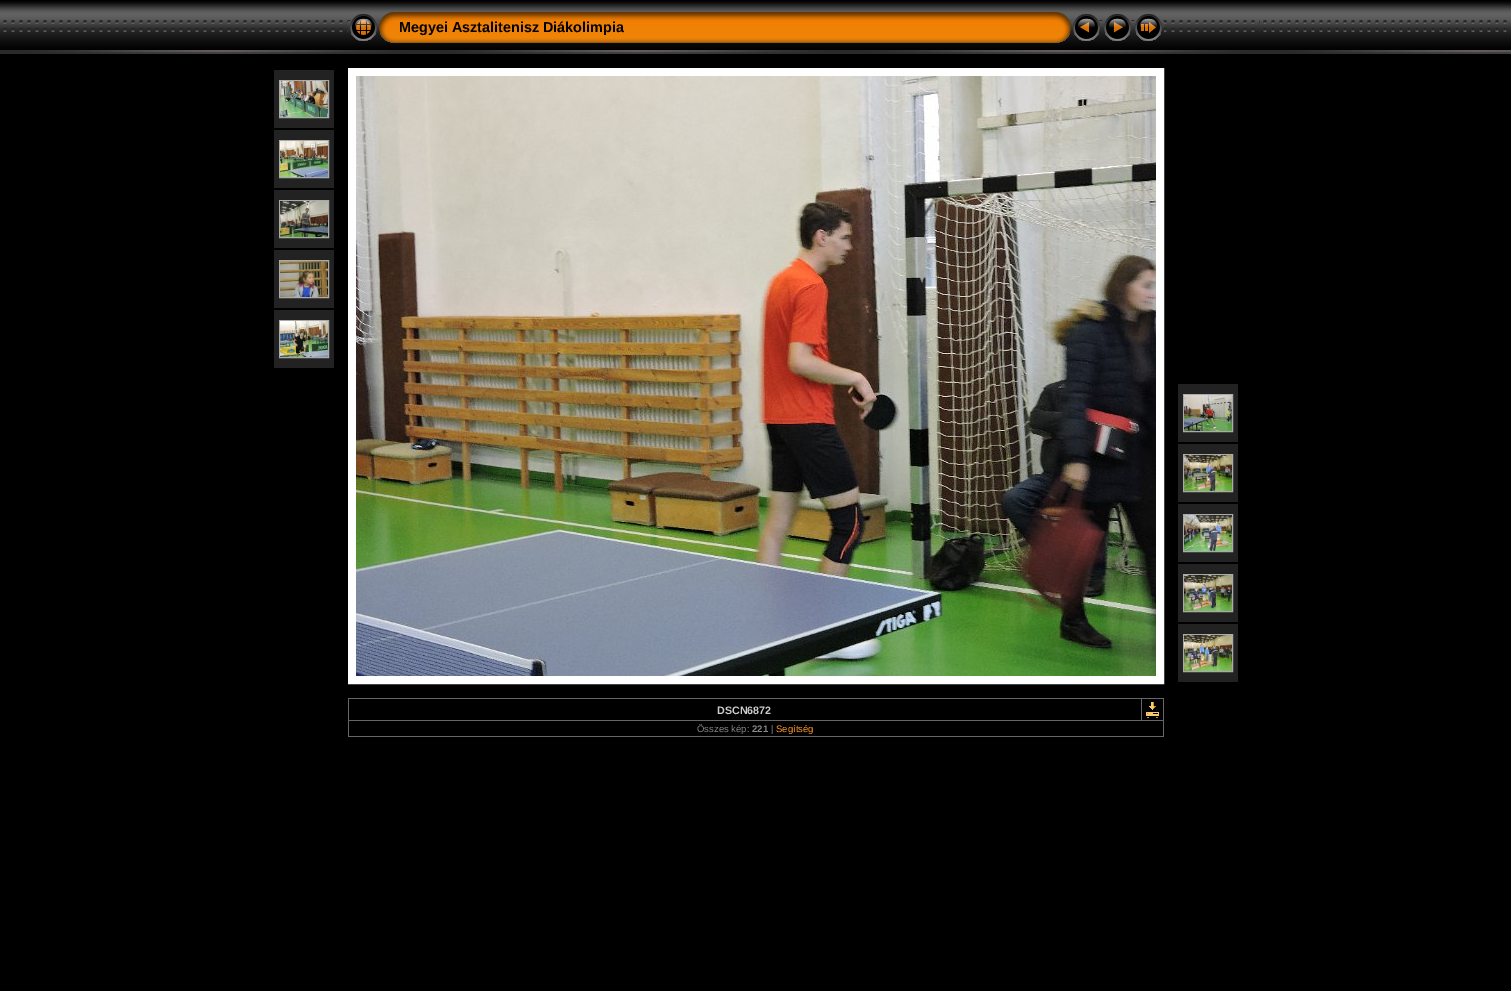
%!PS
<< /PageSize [1511 991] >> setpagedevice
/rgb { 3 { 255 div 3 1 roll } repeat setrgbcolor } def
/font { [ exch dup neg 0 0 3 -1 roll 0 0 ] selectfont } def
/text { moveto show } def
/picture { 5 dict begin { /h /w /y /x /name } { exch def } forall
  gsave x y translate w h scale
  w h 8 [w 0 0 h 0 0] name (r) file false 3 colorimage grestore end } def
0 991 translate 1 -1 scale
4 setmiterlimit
0 0 0 rgb
0 0 1511 991 rectfill
(img_01.rgb) 0 1 1511 53 picture
(img_02.rgb) 348 14 31 27 picture
(img_03.rgb) 379 12 20 31 picture
(img_04.rgb) 399 12 652 31 picture
(img_05.rgb) 1051 12 20 31 picture
(img_06.rgb) 1071 14 31 27 picture
(img_07.rgb) 1102 14 31 27 picture
(img_08.rgb) 1133 14 31 27 picture
34 34 34 rgb
274 70 60 58 rectfill
170 170 170 rgb
279.5 80.5 49 37 rectstroke
(img_09.rgb) 280 81 48 36 picture
34 34 34 rgb
274 130 60 58 rectfill
170 170 170 rgb
279.5 140.5 49 37 rectstroke
(img_10.rgb) 280 141 48 36 picture
34 34 34 rgb
274 190 60 58 rectfill
170 170 170 rgb
279.5 200.5 49 37 rectstroke
(img_11.rgb) 280 201 48 36 picture
34 34 34 rgb
274 250 60 58 rectfill
170 170 170 rgb
279.5 260.5 49 37 rectstroke
(img_12.rgb) 280 261 48 36 picture
34 34 34 rgb
274 310 60 58 rectfill
170 170 170 rgb
279.5 320.5 49 37 rectstroke
(img_13.rgb) 280 321 48 36 picture
255 255 255 rgb
8 setlinewidth
352 72 808 608 rectstroke
(img_14.rgb) 356 76 800 600 picture
34 34 34 rgb
1178 384 60 58 rectfill
170 170 170 rgb
1 setlinewidth
1183.5 394.5 49 37 rectstroke
(img_15.rgb) 1184 395 48 36 picture
34 34 34 rgb
1178 444 60 58 rectfill
170 170 170 rgb
1183.5 454.5 49 37 rectstroke
(img_16.rgb) 1184 455 48 36 picture
34 34 34 rgb
1178 504 60 58 rectfill
170 170 170 rgb
1183.5 514.5 49 37 rectstroke
(img_17.rgb) 1184 515 48 36 picture
34 34 34 rgb
1178 564 60 58 rectfill
170 170 170 rgb
1183.5 574.5 49 37 rectstroke
(img_18.rgb) 1184 575 48 36 picture
34 34 34 rgb
1178 624 60 58 rectfill
170 170 170 rgb
1183.5 634.5 49 37 rectstroke
(img_19.rgb) 1184 635 48 36 picture
102 102 102 rgb
348 698 816 1 rectfill
1163 698 1 39 rectfill
348 736 816 1 rectfill
348 698 1 39 rectfill
348 720 816 1 rectfill
1141 698 1 23 rectfill
(img_20.rgb) 1146 702 13 16 picture
/LiberationSans-Bold 14.4 font
0 0 0 rgb
(Megyei Asztalitenisz Diákolimpia) 399 32 text
/LiberationSans-Bold 10.75 font
204 204 204 rgb
(DSCN6872) 717 714 text
/LiberationSans-Regular 9.5 font
136 136 136 rgb
(Összes kép:) 697 732 text
/LiberationSans-Bold 9.5 font
(221) 752 732 text
/LiberationSans-Regular 9.5 font
(|) 771 732 text
255 153 36 rgb
(Segítség) 776 732 text
showpage
